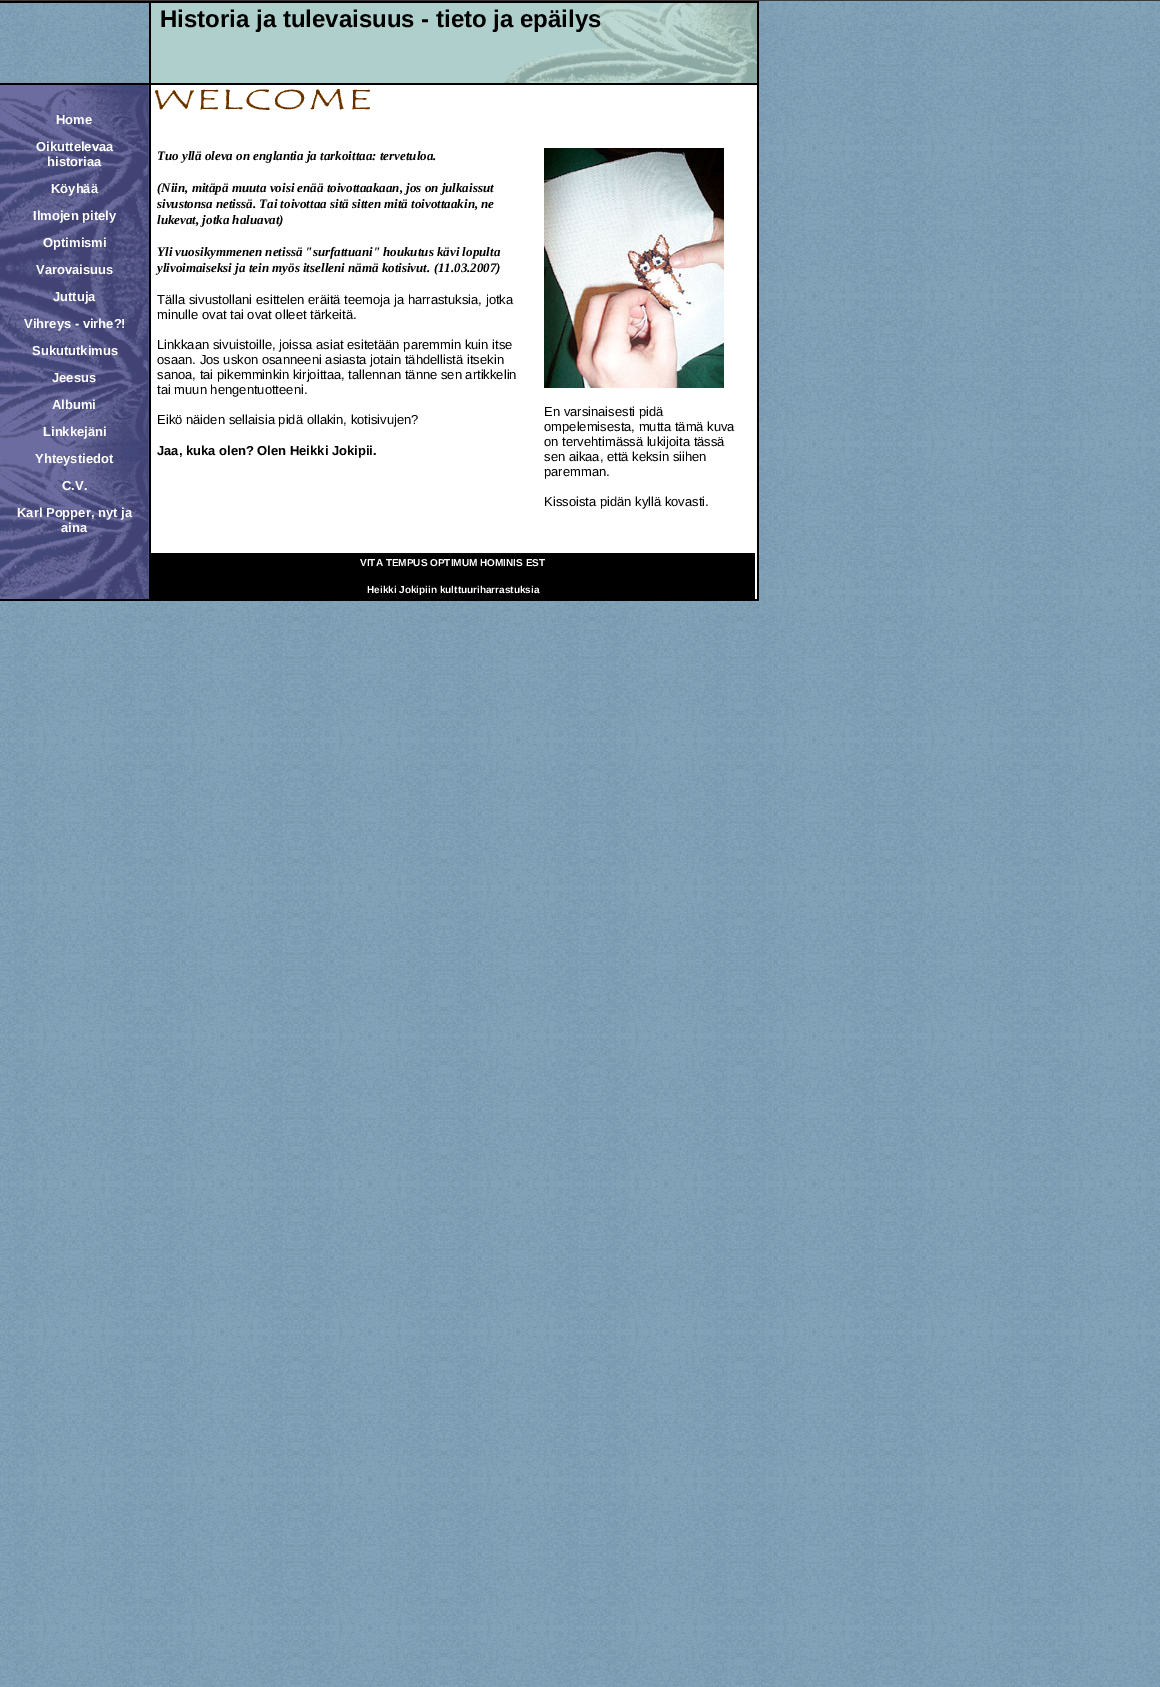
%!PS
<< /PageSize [1160 1687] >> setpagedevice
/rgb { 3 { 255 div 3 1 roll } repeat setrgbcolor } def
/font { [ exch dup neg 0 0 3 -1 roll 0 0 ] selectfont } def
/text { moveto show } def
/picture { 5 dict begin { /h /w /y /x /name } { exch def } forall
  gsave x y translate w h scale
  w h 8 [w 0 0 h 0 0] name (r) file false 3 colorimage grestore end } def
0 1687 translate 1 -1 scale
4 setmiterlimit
255 255 255 rgb
0 0 1160 1687 rectfill
(img_01.rgb) 0 1 1160 1686 picture
57 57 57 rgb
0 0 1160 1 rectfill
0 0 0 rgb
0 1 759 2 rectfill
149 3 2 80 rectfill
174 207 203 rgb
151 3 603 80 rectfill
0 0 0 rgb
757 3 2 80 rectfill
(img_02.rgb) 504 3 253 80 picture
0 83 759 2 rectfill
(img_03.rgb) 0 85 149 514 picture
149 85 2 514 rectfill
255 255 255 rgb
151 85 606 514 rectfill
(img_04.rgb) 155 89 215 21 picture
(img_05.rgb) 544 148 180 240 picture
0 0 0 rgb
151 553 604 46 rectfill
757 85 2 514 rectfill
0 599 759 2 rectfill
/LiberationSans-Bold 24 font
(Historia ja tulevaisuus - tieto ja epäilys) 160 27 text
/LiberationSans-Bold 13 font
255 255 255 rgb
(Home) 56 124 text
(Oikuttelevaa) 36 151 text
(historiaa) 47 166 text
(Köyhää) 51 193 text
(Ilmojen pitely) 33 220 text
(Optimismi) 43 247 text
(Varovaisuus) 36 274 text
(Juttuja) 53 301 text
(Vihreys - virhe?!) 24 328 text
(Sukututkimus) 32 355 text
(Jeesus) 52 382 text
(Albumi) 52 409 text
(Linkkejäni) 43 436 text
(Yhteystiedot) 35 463 text
(C.V.) 62 490 text
(Karl Popper, nyt ja) 17 517 text
(aina) 61 532 text
/LiberationSerif-BoldItalic 13 font
0 0 0 rgb
(Tuo yllä oleva on englantia ja tarkoittaa: tervetuloa.) 157 160 text
(\(Niin, mitäpä muuta voisi enää toivottaakaan, jos on julkaissut) 157 192 text
(sivustonsa netissä. Tai toivottaa sitä sitten mitä toivottaakin, ne) 157 208 text
(lukevat, jotka haluavat\)) 157 224 text
(Yli vuosikymmenen netissä "surfattuani" houkutus kävi lopulta) 157 256 text
(ylivoimaiseksi ja tein myös itselleni nämä kotisivut. \(11.03.2007\)) 157 272 text
/LiberationSans-Regular 13 font
(Tälla sivustollani esittelen eräitä teemoja ja harrastuksia, jotka) 157 304 text
(minulle ovat tai ovat olleet tärkeitä.) 157 319 text
(Linkkaan sivuistoille, joissa asiat esitetään paremmin kuin itse) 157 349 text
(osaan. Jos uskon osanneeni asiasta jotain tähdellistä itsekin) 157 364 text
(sanoa, tai pikemminkin kirjoittaa, tallennan tänne sen artikkelin) 157 379 text
(tai muun hengentuotteeni.) 157 394 text
(Eikö näiden sellaisia pidä ollakin, kotisivujen?) 157 424 text
/LiberationSans-Bold 13 font
(Jaa, kuka olen? Olen Heikki Jokipii.) 157 455 text
/LiberationSans-Regular 13 font
(En varsinaisesti pidä) 544 416 text
(ompelemisesta, mutta tämä kuva) 544 431 text
(on tervehtimässä lukijoita tässä) 544 446 text
(sen aikaa, että keksin siihen) 544 461 text
(paremman.) 544 476 text
(Kissoista pidän kyllä kovasti.) 544 506 text
/LiberationSans-Bold 10 font
255 255 255 rgb
(VITA TEMPUS OPTIMUM HOMINIS EST) 360 566 text
(Heikki Jokipiin kulttuuriharrastuksia) 367 593 text
showpage
